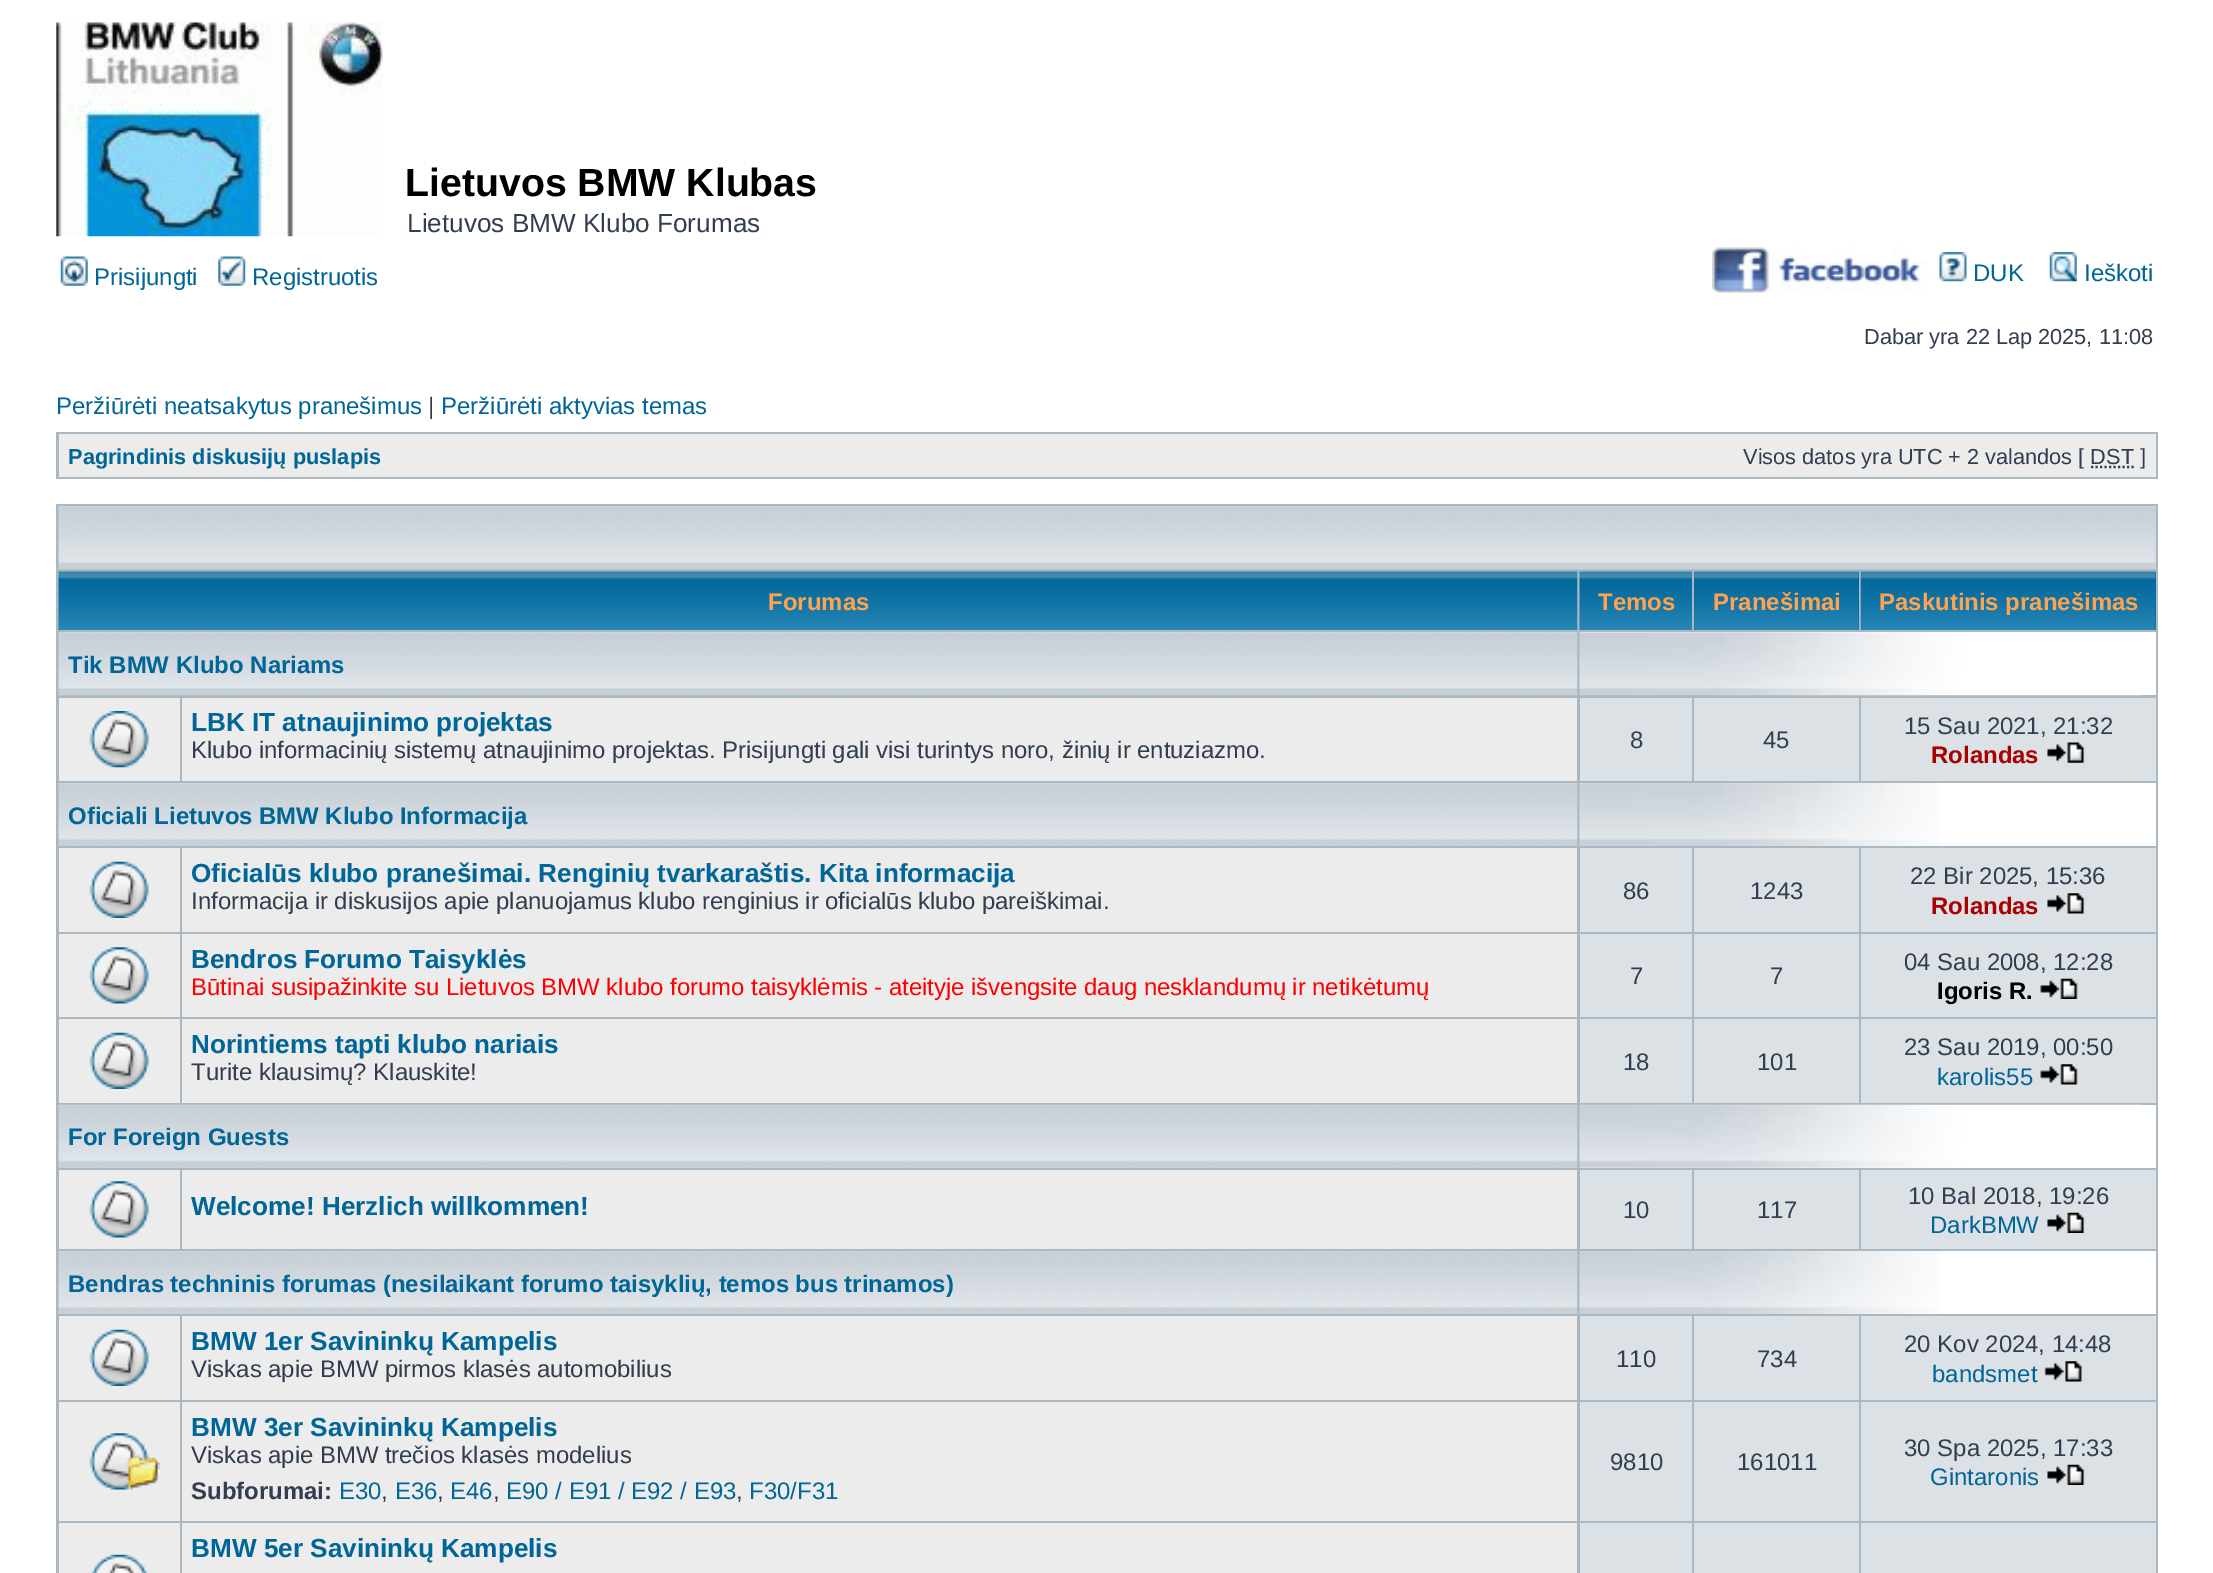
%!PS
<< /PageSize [2213 1573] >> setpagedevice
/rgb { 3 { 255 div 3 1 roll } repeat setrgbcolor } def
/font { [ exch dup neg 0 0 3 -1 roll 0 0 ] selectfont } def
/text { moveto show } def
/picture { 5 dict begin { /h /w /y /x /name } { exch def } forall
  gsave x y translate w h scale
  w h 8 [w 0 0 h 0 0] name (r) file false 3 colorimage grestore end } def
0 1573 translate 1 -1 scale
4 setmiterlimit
255 255 255 rgb
0 0 2213 1573 rectfill
(img_01.rgb) 56 22 327 215 picture
(img_02.rgb) 60 256 28 30 picture
(img_03.rgb) 218 256 28 30 picture
(img_04.rgb) 1712 247 217 46 picture
(img_05.rgb) 1939 252 28 30 picture
(img_06.rgb) 2049 252 28 30 picture
169 184 194 rgb
56 432 2102 47 rectfill
236 236 236 rgb
59 434 2097 43 rectfill
50 61 79 rgb
2.2 setlinewidth
[2.25 2.25] 0 setdash
2091 467 moveto 43.5 0 rlineto stroke
169 184 194 rgb
56 504 2102 1069 rectfill
199 208 215 rgb
59 506 2097 63 rectfill
(img_07.rgb) 58 506 2098 64 picture
(img_08.rgb) 58 571 1520 59 picture
(img_09.rgb) 1579 571 113 59 picture
0 102 153 rgb
1694 572 165 58 rectfill
(img_10.rgb) 1694 571 165 59 picture
2155 572 1 58 rectfill
(img_11.rgb) 1860 571 296 59 picture
(img_12.rgb) 58 632 1520 64 picture
255 255 255 rgb
1580 632 576 63 rectfill
(img_13.rgb) 1579 632 563 64 picture
236 236 236 rgb
59 698 121 83 rectfill
(img_14.rgb) 89 711 61 57 picture
182 698 1395 83 rectfill
220 225 229 rgb
1580 698 112 83 rectfill
1694 698 165 83 rectfill
1861 698 295 83 rectfill
(img_15.rgb) 2047 742 38 21 picture
(img_16.rgb) 58 783 1520 63 picture
255 255 255 rgb
1939 783 217 63 rectfill
(img_17.rgb) 1579 783 360 63 picture
236 236 236 rgb
59 848 121 84 rectfill
(img_18.rgb) 89 861 61 57 picture
182 848 1395 84 rectfill
220 225 229 rgb
1580 848 112 84 rectfill
1694 848 165 84 rectfill
1861 848 295 84 rectfill
(img_19.rgb) 2047 893 38 21 picture
236 236 236 rgb
59 934 121 83 rectfill
(img_20.rgb) 89 947 61 57 picture
182 934 1395 83 rectfill
220 225 229 rgb
1580 934 112 83 rectfill
1694 934 165 83 rectfill
1861 934 295 83 rectfill
(img_21.rgb) 2040 978 38 21 picture
236 236 236 rgb
59 1019 121 84 rectfill
(img_18.rgb) 89 1032 61 57 picture
182 1019 1395 84 rectfill
220 225 229 rgb
1580 1019 112 84 rectfill
1694 1019 165 84 rectfill
1861 1019 295 84 rectfill
(img_22.rgb) 2040 1064 38 21 picture
(img_23.rgb) 58 1104 1520 64 picture
255 255 255 rgb
1580 1105 576 63 rectfill
(img_24.rgb) 1579 1104 563 64 picture
236 236 236 rgb
59 1170 121 79 rectfill
(img_20.rgb) 89 1181 61 57 picture
182 1170 1395 79 rectfill
220 225 229 rgb
1580 1170 112 79 rectfill
1694 1170 165 79 rectfill
1861 1170 295 79 rectfill
(img_25.rgb) 2047 1212 38 21 picture
(img_16.rgb) 58 1251 1520 63 picture
255 255 255 rgb
1939 1251 217 63 rectfill
(img_26.rgb) 1579 1251 360 63 picture
236 236 236 rgb
59 1316 121 84 rectfill
(img_18.rgb) 89 1329 61 57 picture
182 1316 1395 84 rectfill
220 225 229 rgb
1580 1316 112 84 rectfill
1694 1316 165 84 rectfill
1861 1316 295 84 rectfill
(img_27.rgb) 2044 1361 38 21 picture
236 236 236 rgb
59 1402 121 119 rectfill
(img_28.rgb) 89 1433 72 57 picture
182 1402 1395 119 rectfill
220 225 229 rgb
1580 1402 112 119 rectfill
1694 1402 165 119 rectfill
1861 1402 295 119 rectfill
(img_25.rgb) 2047 1464 38 21 picture
236 236 236 rgb
59 1523 121 50 rectfill
(img_29.rgb) 91 1554 56 19 picture
182 1523 1395 50 rectfill
220 225 229 rgb
1580 1523 112 50 rectfill
1694 1523 165 50 rectfill
1861 1523 295 50 rectfill
/LiberationSans-Bold 39.25 font
0 0 0 rgb
(Lietuvos BMW Klubas) 405 196 text
/LiberationSans-Regular 26.15 font
50 61 79 rgb
(Lietuvos BMW Klubo Forumas) 407 232 text
/LiberationSans-Regular 23.95 font
0 101 151 rgb
(Prisijungti) 94 285 text
(Registruotis) 252 285 text
(DUK) 1973 281 text
(Ieškoti) 2084 281 text
/LiberationSans-Regular 21.75 font
50 61 79 rgb
(Dabar yra 22 Lap 2025, 11:08) 1864 344 text
/LiberationSans-Regular 23.95 font
0 101 151 rgb
(Peržiūrėti neatsakytus pranešimus) 56 414 text
50 61 79 rgb
(|) 428 414 text
0 101 151 rgb
(Peržiūrėti aktyvias temas) 441 414 text
/LiberationSans-Bold 21.75 font
(Pagrindinis diskusijų puslapis) 68 464 text
/LiberationSans-Regular 21.75 font
50 61 79 rgb
(Visos datos yra UTC + 2 valandos [ DST ]) 1743 464 text
/LiberationSans-Bold 23.95 font
255 163 79 rgb
(Forumas) 768 610 text
(Temos) 1598 610 text
(Pranešimai) 1713 610 text
(Paskutinis pranešimas) 1879 610 text
0 101 151 rgb
(Tik BMW Klubo Nariams) 68 673 text
/LiberationSans-Bold 26.15 font
(LBK IT atnaujinimo projektas) 191 731 text
/LiberationSans-Regular 23.95 font
50 61 79 rgb
191 758 moveto -0.25 0 32 (Klubo informacinių sistemų atnaujinimo projektas. Prisijungti gali visi turintys noro, žinių ir entuziazmo.) widthshow
(8) 1630 748 text
(45) 1763 748 text
(15 Sau 2021, 21:32) 1904 734 text
/LiberationSans-Bold 23.95 font
170 0 0 rgb
(Rolandas) 1931 763 text
0 101 151 rgb
68 824 moveto -0.25 0 32 (Oficiali Lietuvos BMW Klubo Informacija) widthshow
/LiberationSans-Bold 26.15 font
(Oficialūs klubo pranešimai. Renginių tvarkaraštis. Kita informacija) 191 882 text
/LiberationSans-Regular 23.95 font
50 61 79 rgb
191 909 moveto -0.25 0 32 (Informacija ir diskusijos apie planuojamus klubo renginius ir oficialūs klubo pareiškimai.) widthshow
(86) 1623 899 text
(1243) 1750 899 text
(22 Bir 2025, 15:36) 1910 884 text
/LiberationSans-Bold 23.95 font
170 0 0 rgb
(Rolandas) 1931 914 text
/LiberationSans-Bold 26.15 font
0 101 151 rgb
(Bendros Forumo Taisyklės) 191 968 text
/LiberationSans-Regular 23.95 font
255 0 0 rgb
191 995 moveto -0.25 0 32 (Būtinai susipažinkite su Lietuvos BMW klubo forumo taisyklėmis - ateityje išvengsite daug nesklandumų ir netikėtumų) widthshow
50 61 79 rgb
(7) 1630 984 text
(7) 1770 984 text
(04 Sau 2008, 12:28) 1904 970 text
/LiberationSans-Bold 23.95 font
0 0 0 rgb
(Igoris R.) 1937 999 text
/LiberationSans-Bold 26.15 font
0 101 151 rgb
(Norintiems tapti klubo nariais) 191 1053 text
/LiberationSans-Regular 23.95 font
50 61 79 rgb
(Turite klausimų? Klauskite!) 191 1080 text
(18) 1623 1070 text
(101) 1757 1070 text
(23 Sau 2019, 00:50) 1904 1055 text
0 101 151 rgb
(karolis55) 1937 1085 text
/LiberationSans-Bold 23.95 font
(For Foreign Guests) 68 1145 text
/LiberationSans-Bold 26.15 font
(Welcome! Herzlich willkommen!) 191 1215 text
/LiberationSans-Regular 23.95 font
50 61 79 rgb
(10) 1623 1218 text
(117) 1757 1218 text
(10 Bal 2018, 19:26) 1908 1204 text
0 101 151 rgb
(DarkBMW) 1930 1233 text
/LiberationSans-Bold 23.95 font
68 1292 moveto -0.25 0 32 (Bendras techninis forumas \(nesilaikant forumo taisyklių, temos bus trinamos\)) widthshow
/LiberationSans-Bold 26.15 font
(BMW 1er Savininkų Kampelis) 191 1350 text
/LiberationSans-Regular 23.95 font
50 61 79 rgb
191 1377 moveto -0.25 0 32 (Viskas apie BMW pirmos klasės automobilius) widthshow
(110) 1616 1367 text
(734) 1757 1367 text
(20 Kov 2024, 14:48) 1904 1352 text
0 101 151 rgb
(bandsmet) 1932 1382 text
/LiberationSans-Bold 26.15 font
(BMW 3er Savininkų Kampelis) 191 1436 text
/LiberationSans-Regular 23.95 font
50 61 79 rgb
191 1463 moveto -0.25 0 32 (Viskas apie BMW trečios klasės modelius) widthshow
/LiberationSans-Bold 23.95 font
(Subforumai:) 191 1499 text
/LiberationSans-Regular 23.95 font
0 101 151 rgb
(E30) 339 1499 text
50 61 79 rgb
(,) 381 1499 text
0 101 151 rgb
(E36) 395 1499 text
50 61 79 rgb
(,) 437 1499 text
0 101 151 rgb
(E46) 450 1499 text
50 61 79 rgb
(,) 493 1499 text
0 101 151 rgb
(E90 / E91 / E92 / E93) 506 1499 text
50 61 79 rgb
(,) 736 1499 text
0 101 151 rgb
(F30/F31) 749 1499 text
50 61 79 rgb
(9810) 1610 1470 text
(161011) 1737 1470 text
(30 Spa 2025, 17:33) 1904 1456 text
0 101 151 rgb
(Gintaronis) 1930 1485 text
/LiberationSans-Bold 26.15 font
(BMW 5er Savininkų Kampelis) 191 1557 text
showpage
